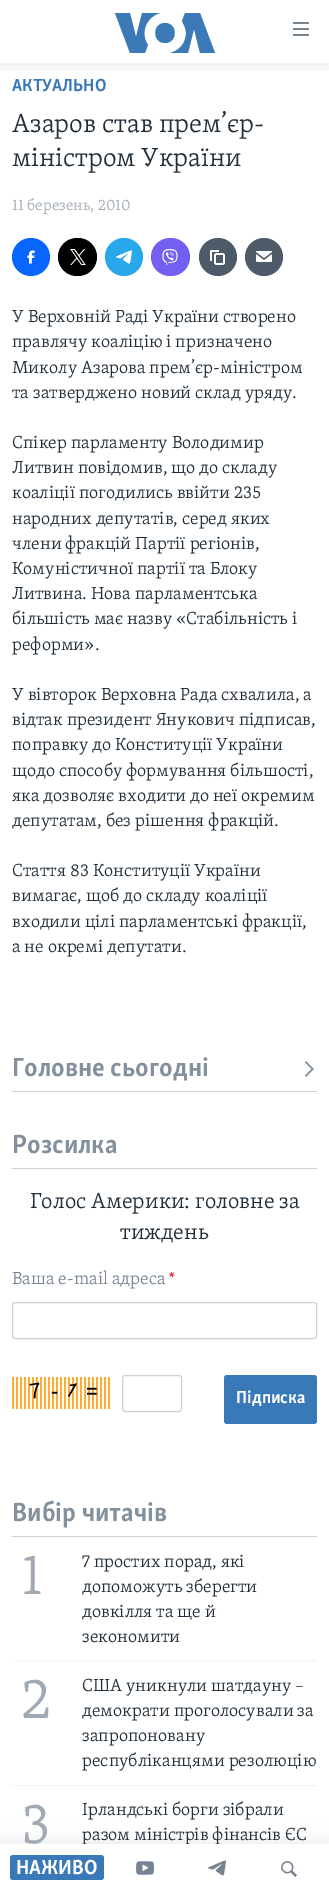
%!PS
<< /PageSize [329 1894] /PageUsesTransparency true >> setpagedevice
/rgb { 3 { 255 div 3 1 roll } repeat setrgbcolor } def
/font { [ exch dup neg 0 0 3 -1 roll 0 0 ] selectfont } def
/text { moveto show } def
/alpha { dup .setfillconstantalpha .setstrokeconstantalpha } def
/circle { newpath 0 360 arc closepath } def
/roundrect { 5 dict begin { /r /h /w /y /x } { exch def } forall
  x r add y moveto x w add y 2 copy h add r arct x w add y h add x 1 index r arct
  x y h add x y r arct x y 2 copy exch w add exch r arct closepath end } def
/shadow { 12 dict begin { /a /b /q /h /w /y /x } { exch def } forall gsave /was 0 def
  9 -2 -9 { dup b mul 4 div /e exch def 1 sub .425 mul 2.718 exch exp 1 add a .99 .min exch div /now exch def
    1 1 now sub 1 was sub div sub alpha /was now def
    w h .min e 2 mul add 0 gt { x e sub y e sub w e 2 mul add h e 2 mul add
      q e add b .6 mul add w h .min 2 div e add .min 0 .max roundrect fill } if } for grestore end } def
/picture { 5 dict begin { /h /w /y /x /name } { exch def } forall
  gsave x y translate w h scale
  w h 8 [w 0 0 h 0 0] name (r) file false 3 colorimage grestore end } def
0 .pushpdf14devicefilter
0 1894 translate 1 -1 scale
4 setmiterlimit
255 255 255 rgb
0 0 329 1894 rectfill
8 102 255 rgb
31 257 19 circle fill
(img_01.rgb) 27 250 8 14 picture
0 0 0 rgb
58 238 39 38 19 roundrect fill
(img_02.rgb) 70 249 16 16 picture
40 168 234 rgb
124 257 19 circle fill
(img_03.rgb) 116 250 16 14 picture
115 96 242 rgb
151 238 39 38 19 roundrect fill
(img_04.rgb) 162 249 16 16 picture
77 90 103 rgb
218 257 19 circle fill
(img_05.rgb) 210 250 15 15 picture
264 257 19 circle fill
(img_06.rgb) 256 251 16 11 picture
203 209 214 rgb
12 1091 305 1 rectfill
(img_07.rgb) 304 1061 10 16 picture
12 1168 305 1 rectfill
12.5 1302.5 304 36 2.5 roundrect stroke
(img_08.rgb) 12 1377 98 32 picture
122.5 1375.5 59 36 2.5 roundrect stroke
58 121 183 rgb
224 1375 93 49 3 roundrect fill
203 209 214 rgb
12 1536 305 1 rectfill
232 234 236 rgb
[1 1] 0 setdash
12 1660.5 moveto 305 0 rlineto stroke
12 1785.5 moveto 305 0 rlineto stroke
gsave
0 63 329 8 rectclip
0 0 0 rgb
0 0 329 63 0 10 0.1 shadow
grestore
59 121 183 rgb
148 45 moveto -3 8 rlineto -15 0 rlineto -15 -40 rlineto 15 0 rlineto 6 24 rlineto 6 -24 rlineto 18 0 rlineto -14 4 -20 20 -12 32 rcurveto closepath 165 23 moveto -13 0 -13 20 0 20 rcurveto 13 0 13 -20 0 -20 rcurveto closepath 186 33 moveto 0 10 -7 18 -16 20 rcurveto 18 0 rlineto 6 -24 rlineto 6 24 rlineto 15 0 rlineto -15 -40 rlineto -15 0 rlineto -3 8 rlineto 2 4 4 8 4 12 rcurveto closepath fill
(img_09.rgb) 293 22 16 14 picture
0 0 0 rgb
0 1844 329 50 0 10 0.1 shadow
/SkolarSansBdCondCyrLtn-Bold 18 font
58 121 183 rgb
(АКТУАЛЬНО) 12 91 text
/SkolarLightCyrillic-Light 27 font
34 47 58 rgb
(Азаров став прем’єр-) 12 132 text
(міністром України) 12 166 text
/SkolarLightCyrillic-Light 15.75 font
161 170 180 rgb
(11 березень, 2010) 12 210 text
/SkolarLightCyrillic-Light 18 font
34 47 58 rgb
(У Верховній Раді України створено) 12 322 text
(правлячу коаліцію і призначено) 12 347 text
(Миколу Азарова прем’єр-міністром) 12 373 text
(та затверджено новий склад уряду.) 12 398 text
(Спікер парламенту Володимир) 12 448 text
(Литвин повідомив, що до складу) 12 473 text
(коаліції погодились ввійти 235) 12 498 text
(народних депутатів, серед яких) 12 524 text
(члени фракцій Партії регіонів,) 12 549 text
(Комуністичної партії та Блоку) 12 574 text
(Литвина. Нова парламентська) 12 599 text
(більшість має назву «Стабільність і) 12 624 text
(реформи».) 12 650 text
(У вівторок Верховна Рада схвалила, а) 12 700 text
(відтак президент Янукович підписав,) 12 725 text
(поправку до Конституції України) 12 750 text
(щодо способу формування більшості,) 12 776 text
(яка дозволяє входити до неї окремим) 12 801 text
(депутатам, без рішення фракцій.) 12 826 text
(Стаття 83 Конституції України) 12 876 text
(вимагає, щоб до складу коаліції) 12 901 text
(входили цілі парламентські фракції,) 12 927 text
(а не окремі депутати.) 12 952 text
/SkolarSansBdCondCyrLtn-Bold 27 font
132 145 157 rgb
(Головне сьогодні) 12 1076 text
(Розсилка) 12 1153 text
/SkolarLightCyrillic-Light 22.5 font
34 47 58 rgb
(Голос Америки: головне за) 30 1208 text
(тиждень) 120 1239 text
/SkolarLightCyrillic-Light 18 font
118 132 146 rgb
(Ваша e-mail адреса) 12 1284 text
/SkolarLightCyrillic-Light 15.75 font
214 1 9 rgb
(*) 169 1284 text
/SkolarSansBdCondCyrLtn-Bold 18 font
255 255 255 rgb
(Підписка) 236 1403 text
/SkolarSansBdCondCyrLtn-Bold 27 font
132 145 157 rgb
(Вибір читачів) 12 1521 text
/SkolarLightCyrillic-Light 59 font
161 170 180 rgb
(1) 21 1594 text
/SkolarLightCyrillic-Light 18 font
34 47 58 rgb
(7 простих порад, які) 82 1567 text
(допоможуть зберегти) 82 1592 text
(довкілля та ще й) 82 1617 text
(зекономити) 82 1642 text
/SkolarLightCyrillic-Light 59 font
161 170 180 rgb
(2) 21 1718 text
/SkolarLightCyrillic-Light 18 font
34 47 58 rgb
(США уникнули шатдауну –) 82 1691 text
(демократи проголосували за) 82 1716 text
(запропоновану) 82 1741 text
(республіканцями резолюцію) 82 1766 text
/SkolarLightCyrillic-Light 59 font
161 170 180 rgb
(3) 21 1843 text
/SkolarLightCyrillic-Light 18 font
34 47 58 rgb
(Ірландські борги зібрали) 82 1815 text
(разом міністрів фінансів ЄС) 82 1840 text
255 255 255 rgb
0 1844 329 50 rectfill
58 121 183 rgb
10 1855 94 25 3 roundrect fill
/SkolarSansBdCondCyrLtn-Bold 21 font
255 255 255 rgb
(НАЖИВО) 16 1874 text
(img_10.rgb) 136 1861 18 14 picture
(img_11.rgb) 208 1860 18 16 picture
(img_12.rgb) 281 1861 16 16 picture
.poppdf14devicefilter showpage
